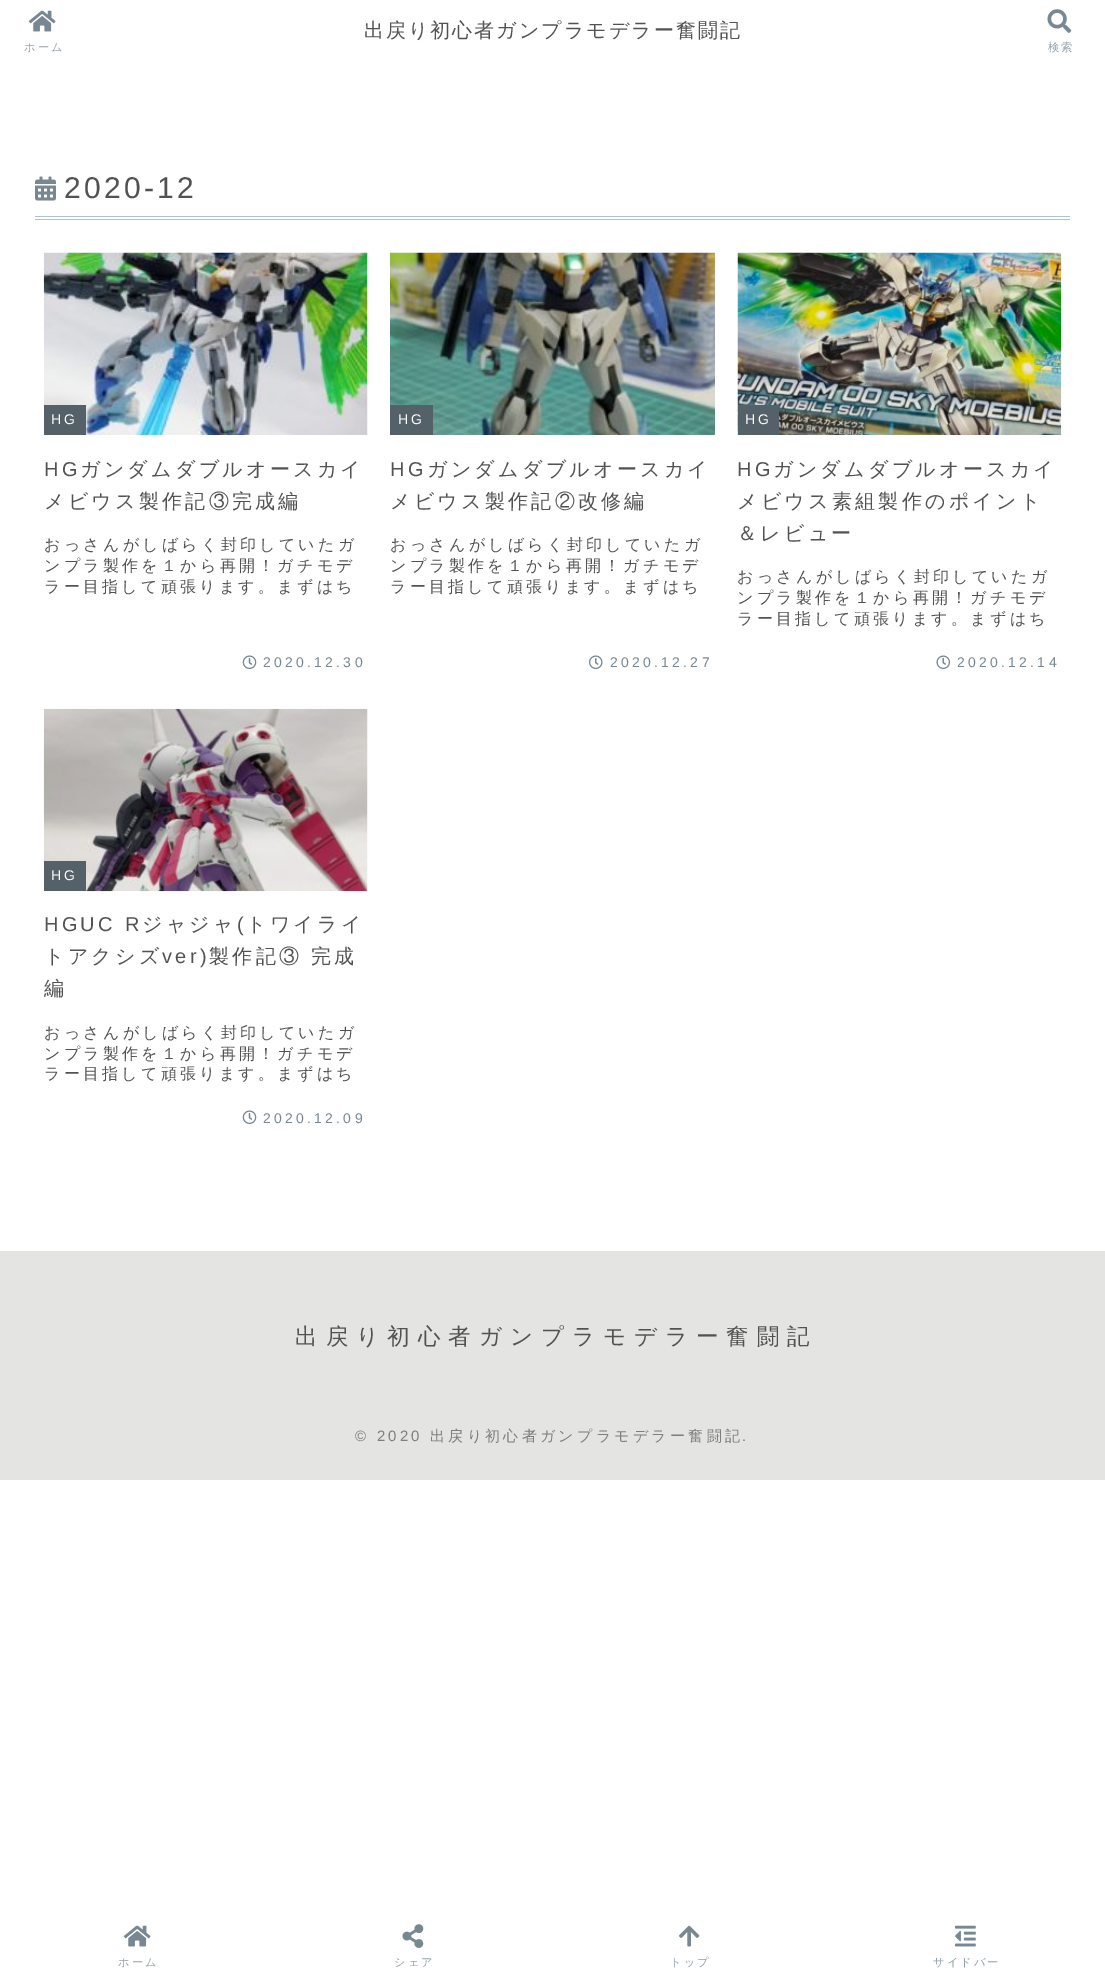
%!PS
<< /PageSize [1105 1977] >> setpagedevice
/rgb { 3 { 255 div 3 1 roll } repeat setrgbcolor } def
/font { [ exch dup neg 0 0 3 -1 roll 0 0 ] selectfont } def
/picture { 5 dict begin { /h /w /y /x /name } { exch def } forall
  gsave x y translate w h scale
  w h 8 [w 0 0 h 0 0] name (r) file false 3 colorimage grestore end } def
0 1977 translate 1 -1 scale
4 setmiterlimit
255 255 255 rgb
0 0 1105 1977 rectfill
(img_01.rgb) 28 10 28 22 picture
(img_02.rgb) 1047 9 25 24 picture
170 194 210 rgb
35 216 1035 1 rectfill
35 219 1035 1 rectfill
(img_03.rgb) 35 176 21 25 picture
(img_04.rgb) 43 252 325 183 picture
85 97 105 rgb
44 405 42 30 rectfill
(img_05.rgb) 242 655 15 14 picture
(img_06.rgb) 390 252 325 183 picture
390 405 43 30 rectfill
(img_07.rgb) 589 655 14 14 picture
(img_08.rgb) 737 252 325 183 picture
738 405 41 30 rectfill
(img_09.rgb) 936 655 14 14 picture
(img_10.rgb) 43 708 325 184 picture
44 861 42 30 rectfill
(img_05.rgb) 242 1110 15 14 picture
228 228 227 rgb
0 1251 1105 229 rectfill
(img_01.rgb) 123 1925 28 22 picture
(img_11.rgb) 402 1924 22 24 picture
(img_12.rgb) 679 1925 21 22 picture
(img_13.rgb) 955 1925 21 22 picture
/WenQuanYiZenHei-Medium 20 font
83 82 82 rgb
364 37 moveto 2 0 (出戻り初心者ガンプラモデラー奮闘記) ashow
/WenQuanYiZenHei-Medium 11.25 font
146 160 169 rgb
24 51 moveto 2 0 (ホーム) ashow
1048 51 moveto 2 0 (検索) ashow
/LiberationSans-Regular 30 font
83 82 82 rgb
64 198 moveto 3.25 0 (2020-12) ashow
/LiberationSans-Regular 14 font
255 255 255 rgb
51 424 moveto 3.25 0 (HG) ashow
/LiberationSans-Regular 20 font
83 82 82 rgb
44 476 moveto 3.25 0 (HG) ashow
/WenQuanYiZenHei-Medium 20 font
80 476 moveto 3.25 0 (ガンダムダブルオースカイ) ashow
44 508 moveto 3.25 0 (メビウス製作記③完成編) ashow
/WenQuanYiZenHei-Medium 16 font
44 550 moveto 3.25 0 (おっさんがしばらく封印していたガ) ashow
44 571 moveto 3.25 0 (ンプラ製作を１から再開！ガチモデ) ashow
44 592 moveto 3.25 0 (ラー目指して頑張ります。まずはち) ashow
/LiberationSans-Regular 14 font
119 136 147 rgb
263 667 moveto 3.25 0 (2020.12.30) ashow
255 255 255 rgb
398 424 moveto 3.25 0 (HG) ashow
/LiberationSans-Regular 20 font
83 82 82 rgb
390 476 moveto 3.25 0 (HG) ashow
/WenQuanYiZenHei-Medium 20 font
427 476 moveto 3.25 0 (ガンダムダブルオースカイ) ashow
390 508 moveto 3.25 0 (メビウス製作記②改修編) ashow
/WenQuanYiZenHei-Medium 16 font
390 550 moveto 3.25 0 (おっさんがしばらく封印していたガ) ashow
390 571 moveto 3.25 0 (ンプラ製作を１から再開！ガチモデ) ashow
390 592 moveto 3.25 0 (ラー目指して頑張ります。まずはち) ashow
/LiberationSans-Regular 14 font
119 136 147 rgb
610 667 moveto 3.25 0 (2020.12.27) ashow
255 255 255 rgb
745 424 moveto 3.25 0 (HG) ashow
/LiberationSans-Regular 20 font
83 82 82 rgb
737 476 moveto 3.25 0 (HG) ashow
/WenQuanYiZenHei-Medium 20 font
773 476 moveto 3.25 0 (ガンダムダブルオースカイ) ashow
737 508 moveto 3.25 0 (メビウス素組製作のポイント) ashow
737 540 moveto 3.25 0 (＆レビュー) ashow
/WenQuanYiZenHei-Medium 16 font
737 582 moveto 3.25 0 (おっさんがしばらく封印していたガ) ashow
737 603 moveto 3.25 0 (ンプラ製作を１から再開！ガチモデ) ashow
737 624 moveto 3.25 0 (ラー目指して頑張ります。まずはち) ashow
/LiberationSans-Regular 14 font
119 136 147 rgb
957 667 moveto 3.25 0 (2020.12.14) ashow
255 255 255 rgb
51 880 moveto 3.25 0 (HG) ashow
/LiberationSans-Regular 20 font
83 82 82 rgb
44 931 moveto 3.25 0 (HGUC R) ashow
/WenQuanYiZenHei-Medium 20 font
142 931 moveto 3.25 0 (ジャジャ) ashow
/LiberationSans-Regular 20 font
237 931 moveto 3.25 0 (\() ashow
/WenQuanYiZenHei-Medium 20 font
246 931 moveto 3.25 0 (トワイライ) ashow
44 963 moveto 3.25 0 (トアクシズ) ashow
/LiberationSans-Regular 20 font
162 963 moveto 3.25 0 (ver\)) ashow
/WenQuanYiZenHei-Medium 20 font
209 963 moveto 3.25 0 (製作記③ 完成) ashow
44 995 moveto 3.25 0 (編) ashow
/WenQuanYiZenHei-Medium 16 font
44 1038 moveto 3.25 0 (おっさんがしばらく封印していたガ) ashow
44 1059 moveto 3.25 0 (ンプラ製作を１から再開！ガチモデ) ashow
44 1079 moveto 3.25 0 (ラー目指して頑張ります。まずはち) ashow
/LiberationSans-Regular 14 font
119 136 147 rgb
263 1123 moveto 3.25 0 (2020.12.09) ashow
/WenQuanYiZenHei-Medium 22.5 font
83 82 82 rgb
295 1344 moveto 8 0 (出戻り初心者ガンプラモデラー奮闘記) ashow
/LiberationSans-Regular 15 font
127 126 126 rgb
355 1441 moveto 3.25 0 (© 2020) ashow
/WenQuanYiZenHei-Medium 15 font
430 1441 moveto 3.25 0 (出戻り初心者ガンプラモデラー奮闘記) ashow
/LiberationSans-Regular 15 font
742 1441 moveto 3.25 0 (.) ashow
/WenQuanYiZenHei-Medium 11.25 font
146 160 169 rgb
118 1966 moveto 2 0 (ホーム) ashow
394 1966 moveto 2 0 (シェア) ashow
670 1966 moveto 2 0 (トップ) ashow
933 1966 moveto 2 0 (サイドバー) ashow
showpage
